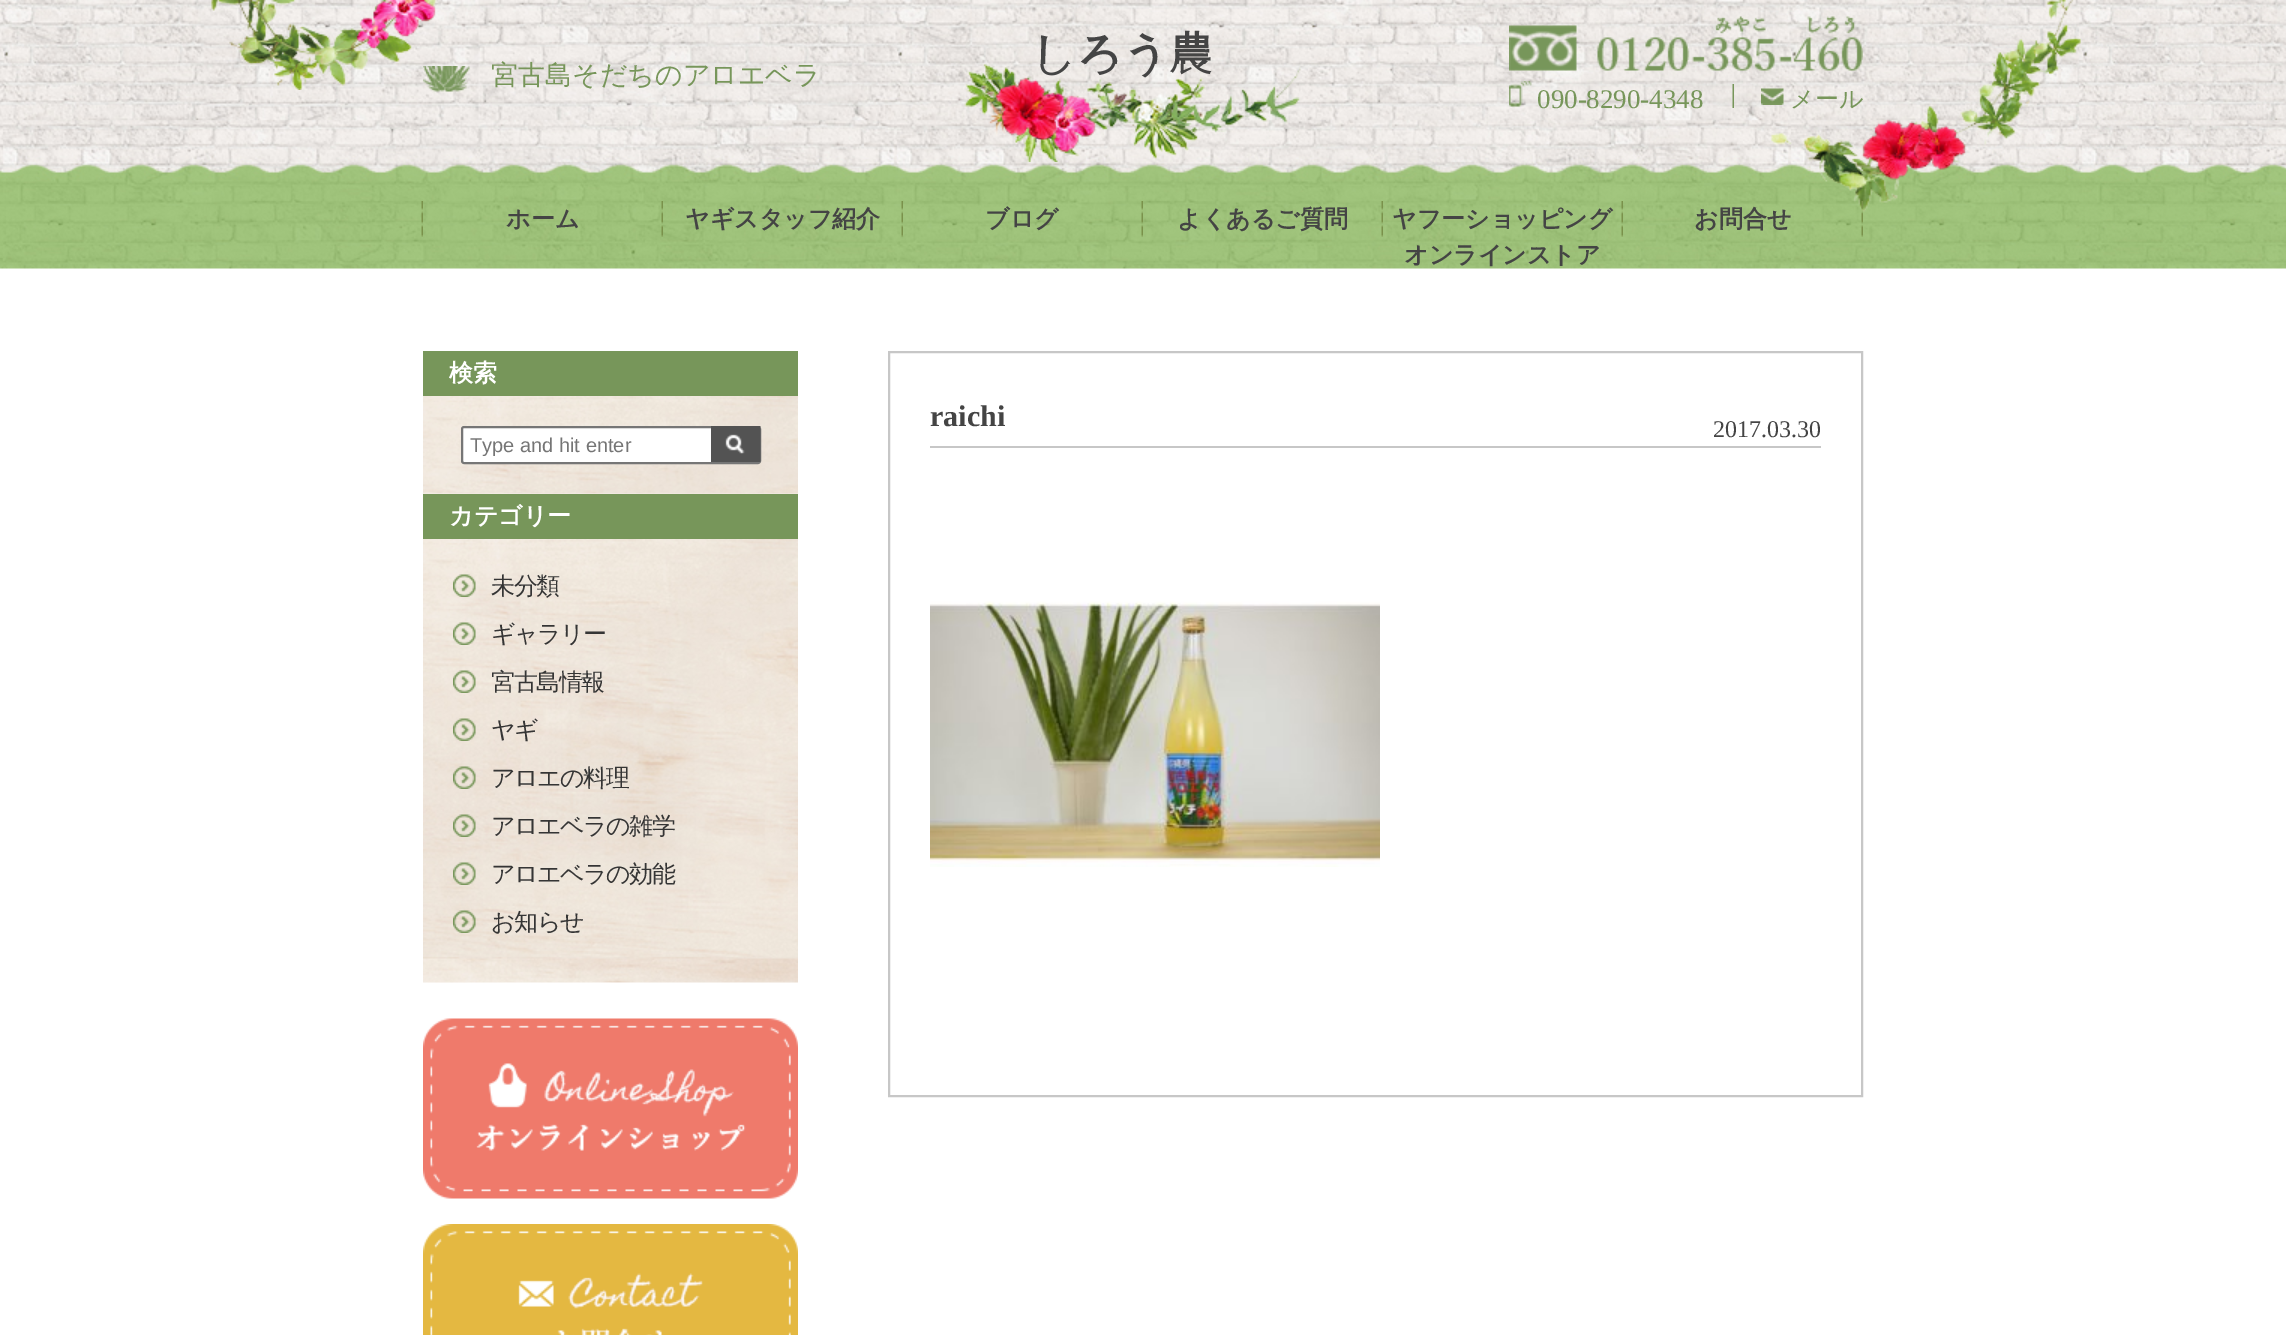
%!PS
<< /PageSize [2286 1335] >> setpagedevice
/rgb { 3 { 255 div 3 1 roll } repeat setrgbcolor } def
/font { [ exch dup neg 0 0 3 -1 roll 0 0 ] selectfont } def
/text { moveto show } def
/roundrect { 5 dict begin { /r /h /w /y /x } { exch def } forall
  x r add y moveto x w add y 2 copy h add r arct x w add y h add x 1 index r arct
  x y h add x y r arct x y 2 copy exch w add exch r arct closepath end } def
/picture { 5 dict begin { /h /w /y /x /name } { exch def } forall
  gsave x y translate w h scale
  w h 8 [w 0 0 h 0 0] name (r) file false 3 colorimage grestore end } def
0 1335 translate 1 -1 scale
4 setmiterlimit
255 255 255 rgb
0 0 2286 1335 rectfill
(img_01.rgb) 0 0 2286 269 picture
(img_03.rgb) 423 66 47 26 picture
(img_02.rgb) 211 0 226 90 picture
(img_06.rgb) 1509 16 354 55 picture
(img_04.rgb) 1771 0 310 212 picture
(img_07.rgb) 1509 81 23 26 picture
(img_08.rgb) 1732 84 2 24 picture
(img_09.rgb) 1761 88 23 17 picture
(img_10.rgb) 421 201 2 36 picture
(img_11.rgb) 661 201 2 36 picture
(img_12.rgb) 901 201 2 36 picture
(img_13.rgb) 1141 201 2 36 picture
(img_14.rgb) 1381 201 2 36 picture
(img_15.rgb) 1621 201 2 36 picture
(img_16.rgb) 1861 201 2 36 picture
(img_17.rgb) 423 396 375 98 picture
119 150 90 rgb
423 351 375 45 rectfill
255 255 255 rgb
462 427 298 36 2 roundrect gsave fill grestore
118 118 118 rgb
2 setlinewidth
stroke
(img_18.rgb) 711 426 50 36 picture
(img_19.rgb) 423 493 375 490 picture
119 150 90 rgb
423 494 375 45 rectfill
(img_20.rgb) 453 574 23 23 picture
(img_21.rgb) 453 622 23 23 picture
(img_22.rgb) 453 670 23 23 picture
(img_23.rgb) 453 718 23 23 picture
(img_24.rgb) 453 766 23 23 picture
(img_25.rgb) 453 814 23 23 picture
(img_26.rgb) 453 862 23 23 picture
(img_27.rgb) 453 910 23 23 picture
(img_28.rgb) 423 1018 375 181 picture
(img_29.rgb) 423 1224 375 111 picture
199 199 199 rgb
889 352 973 744 rectstroke
930 446 891 2 rectfill
(img_30.rgb) 930 601 450 266 picture
/WenQuanYiZenHei-Medium 27 font
119 150 90 rgb
(宮古島そだちのアロエベラ) 491 84 text
/WenQuanYiZenHei-Bold 45 font
68 68 68 rgb
(しろう農) 1031 69 text
(img_05.rgb) 964 64 337 98 picture
/LiberationSerif-Regular 27 font
119 150 90 rgb
(090-8290-4348) 1537 108 text
/WenQuanYiZenHei-Medium 24 font
(メール) 1790 107 text
/WenQuanYiZenHei-Bold 24 font
68 68 68 rgb
(ホーム) 506 227 text
(ヤギスタッフ紹介) 685 227 text
(ブログ) 985 227 text
(よくあるご質問) 1177 227 text
(ヤフーショッピング) 1392 227 text
(オンラインストア) 1404 263 text
(お問合せ) 1694 227 text
255 255 255 rgb
(検索) 449 381 text
gsave
470 434 282 22 rectclip
/LiberationSans-Regular 20 font
117 117 117 rgb
(Type and hit enter) 470 452 text
grestore
(カテゴリー) 449 524 text
/WenQuanYiZenHei-Medium 24 font
53 53 53 rgb
491 594 moveto -1.5 0 (未分類) ashow
491 642 moveto -1.5 0 (ギャラリー) ashow
491 690 moveto -1.5 0 (宮古島情報) ashow
491 738 moveto -1.5 0 (ヤギ) ashow
491 786 moveto -1.5 0 (アロエの料理) ashow
491 834 moveto -1.5 0 (アロエベラの雑学) ashow
491 882 moveto -1.5 0 (アロエベラの効能) ashow
491 930 moveto -1.5 0 (お知らせ) ashow
/LiberationSerif-Bold 30 font
68 68 68 rgb
(raichi) 930 426 text
/LiberationSerif-Regular 24 font
(2017.03.30) 1713 437 text
showpage
